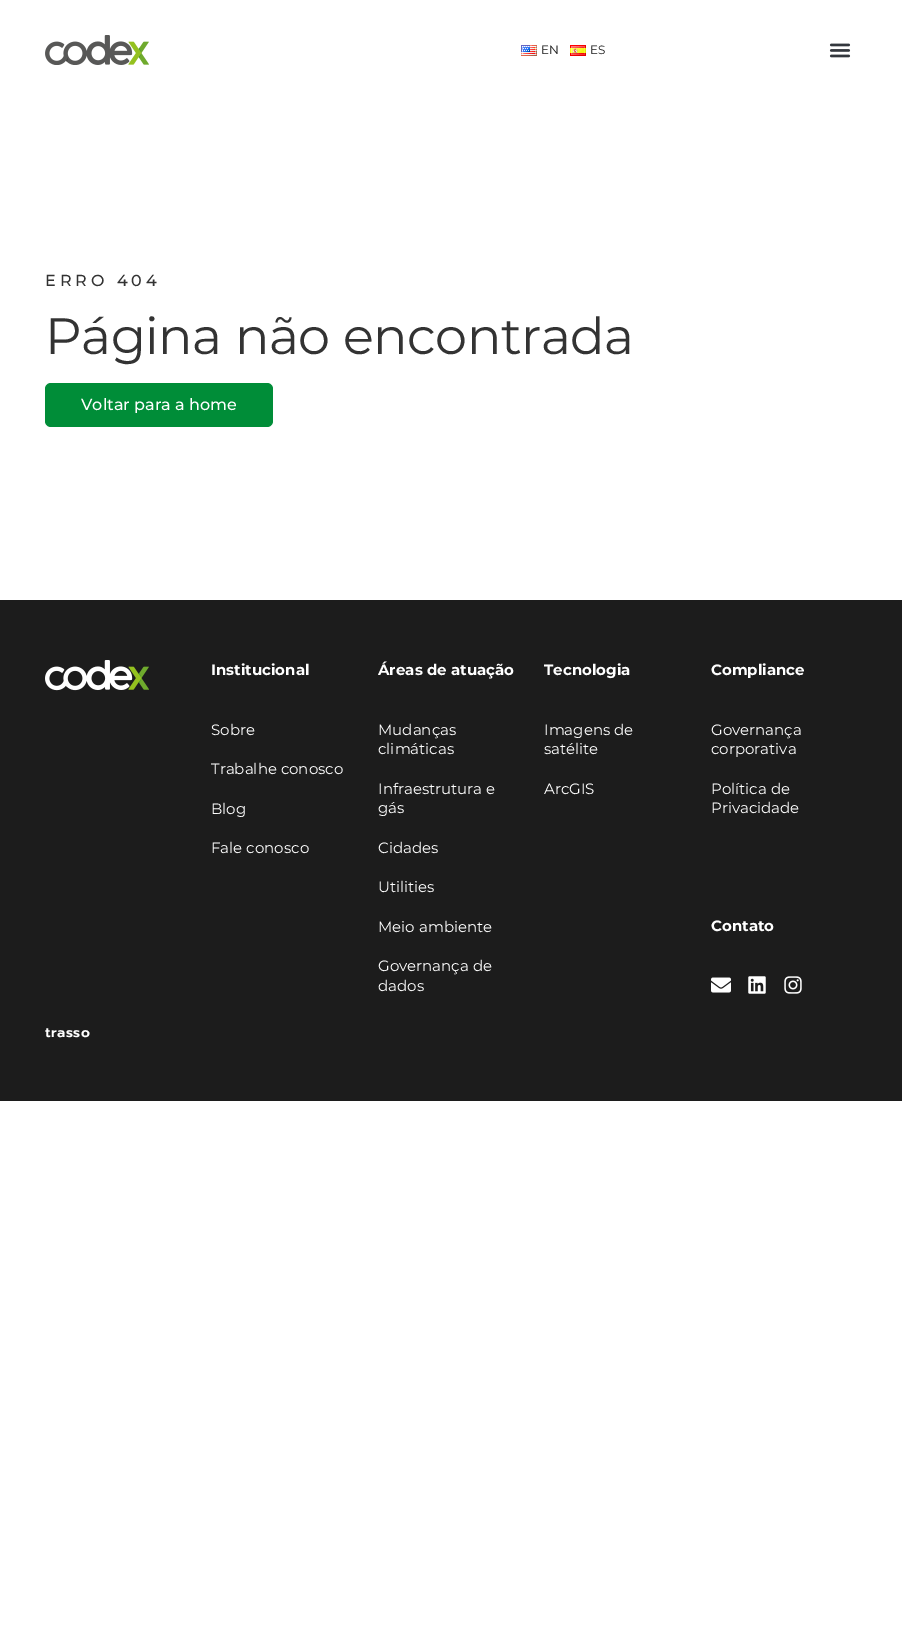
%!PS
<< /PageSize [902 1626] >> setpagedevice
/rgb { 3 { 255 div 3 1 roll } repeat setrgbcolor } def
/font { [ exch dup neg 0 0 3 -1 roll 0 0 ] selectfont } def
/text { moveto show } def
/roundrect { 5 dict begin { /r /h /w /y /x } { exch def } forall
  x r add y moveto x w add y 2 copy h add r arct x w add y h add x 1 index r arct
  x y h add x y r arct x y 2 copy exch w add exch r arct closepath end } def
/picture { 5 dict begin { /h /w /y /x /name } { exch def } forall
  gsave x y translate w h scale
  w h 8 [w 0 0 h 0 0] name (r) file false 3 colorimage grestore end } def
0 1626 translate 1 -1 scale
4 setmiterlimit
255 255 255 rgb
0 0 902 1626 rectfill
(img_01.rgb) 45 35 104 30 picture
(img_02.rgb) 521 45 16 11 picture
(img_03.rgb) 570 45 16 11 picture
(img_04.rgb) 829 43 22 15 picture
0 141 56 rgb
45 383 228 44 6 roundrect fill
28 28 28 rgb
0 600 902 501 rectfill
(img_05.rgb) 45 660 104 31 picture
(img_06.rgb) 711 977 20 16 picture
(img_07.rgb) 748 976 18 18 picture
(img_08.rgb) 784 976 18 18 picture
/Montserrat-Regular 12 font
(EN) 541 54 text
(ES) 590 54 text
/Montserrat-Medium 16 font
51 51 51 rgb
45 286 moveto 4 0 (ERRO 404) ashow
/Montserrat-Regular 51 font
45 354 moveto -0.5 0 (Página não encontrada) ashow
/Montserrat-Medium 16 font
255 255 255 rgb
(Voltar para a home) 81 410 text
/Montserrat-Bold 15 font
(Institucional) 211 675 text
/Montserrat-Regular 15 font
(Sobre) 211 735 text
(Trabalhe conosco) 211 774 text
(Blog) 211 814 text
(Fale conosco) 211 853 text
/Montserrat-Bold 15 font
(Áreas de atuação) 378 675 text
/Montserrat-Regular 15 font
(Mudanças) 378 735 text
(climáticas) 378 754 text
(Infraestrutura e) 378 794 text
(gás) 378 813 text
(Cidades) 378 853 text
(Utilities) 378 892 text
(Meio ambiente) 378 932 text
(Governança de) 378 971 text
(dados) 378 991 text
/Montserrat-Bold 15 font
(Tecnologia) 544 675 text
/Montserrat-Regular 15 font
(Imagens de) 544 735 text
(satélite) 544 754 text
(ArcGIS) 544 794 text
/Montserrat-Bold 15 font
(Compliance) 711 675 text
/Montserrat-Regular 15 font
(Governança) 711 735 text
(corporativa) 711 754 text
(Política de) 711 794 text
(Privacidade) 711 813 text
/Montserrat-Bold 15 font
(Contato) 711 931 text
/Prompt-SemiBold 14 font
45 1037 moveto 0.5 0 (trasso) ashow
showpage
